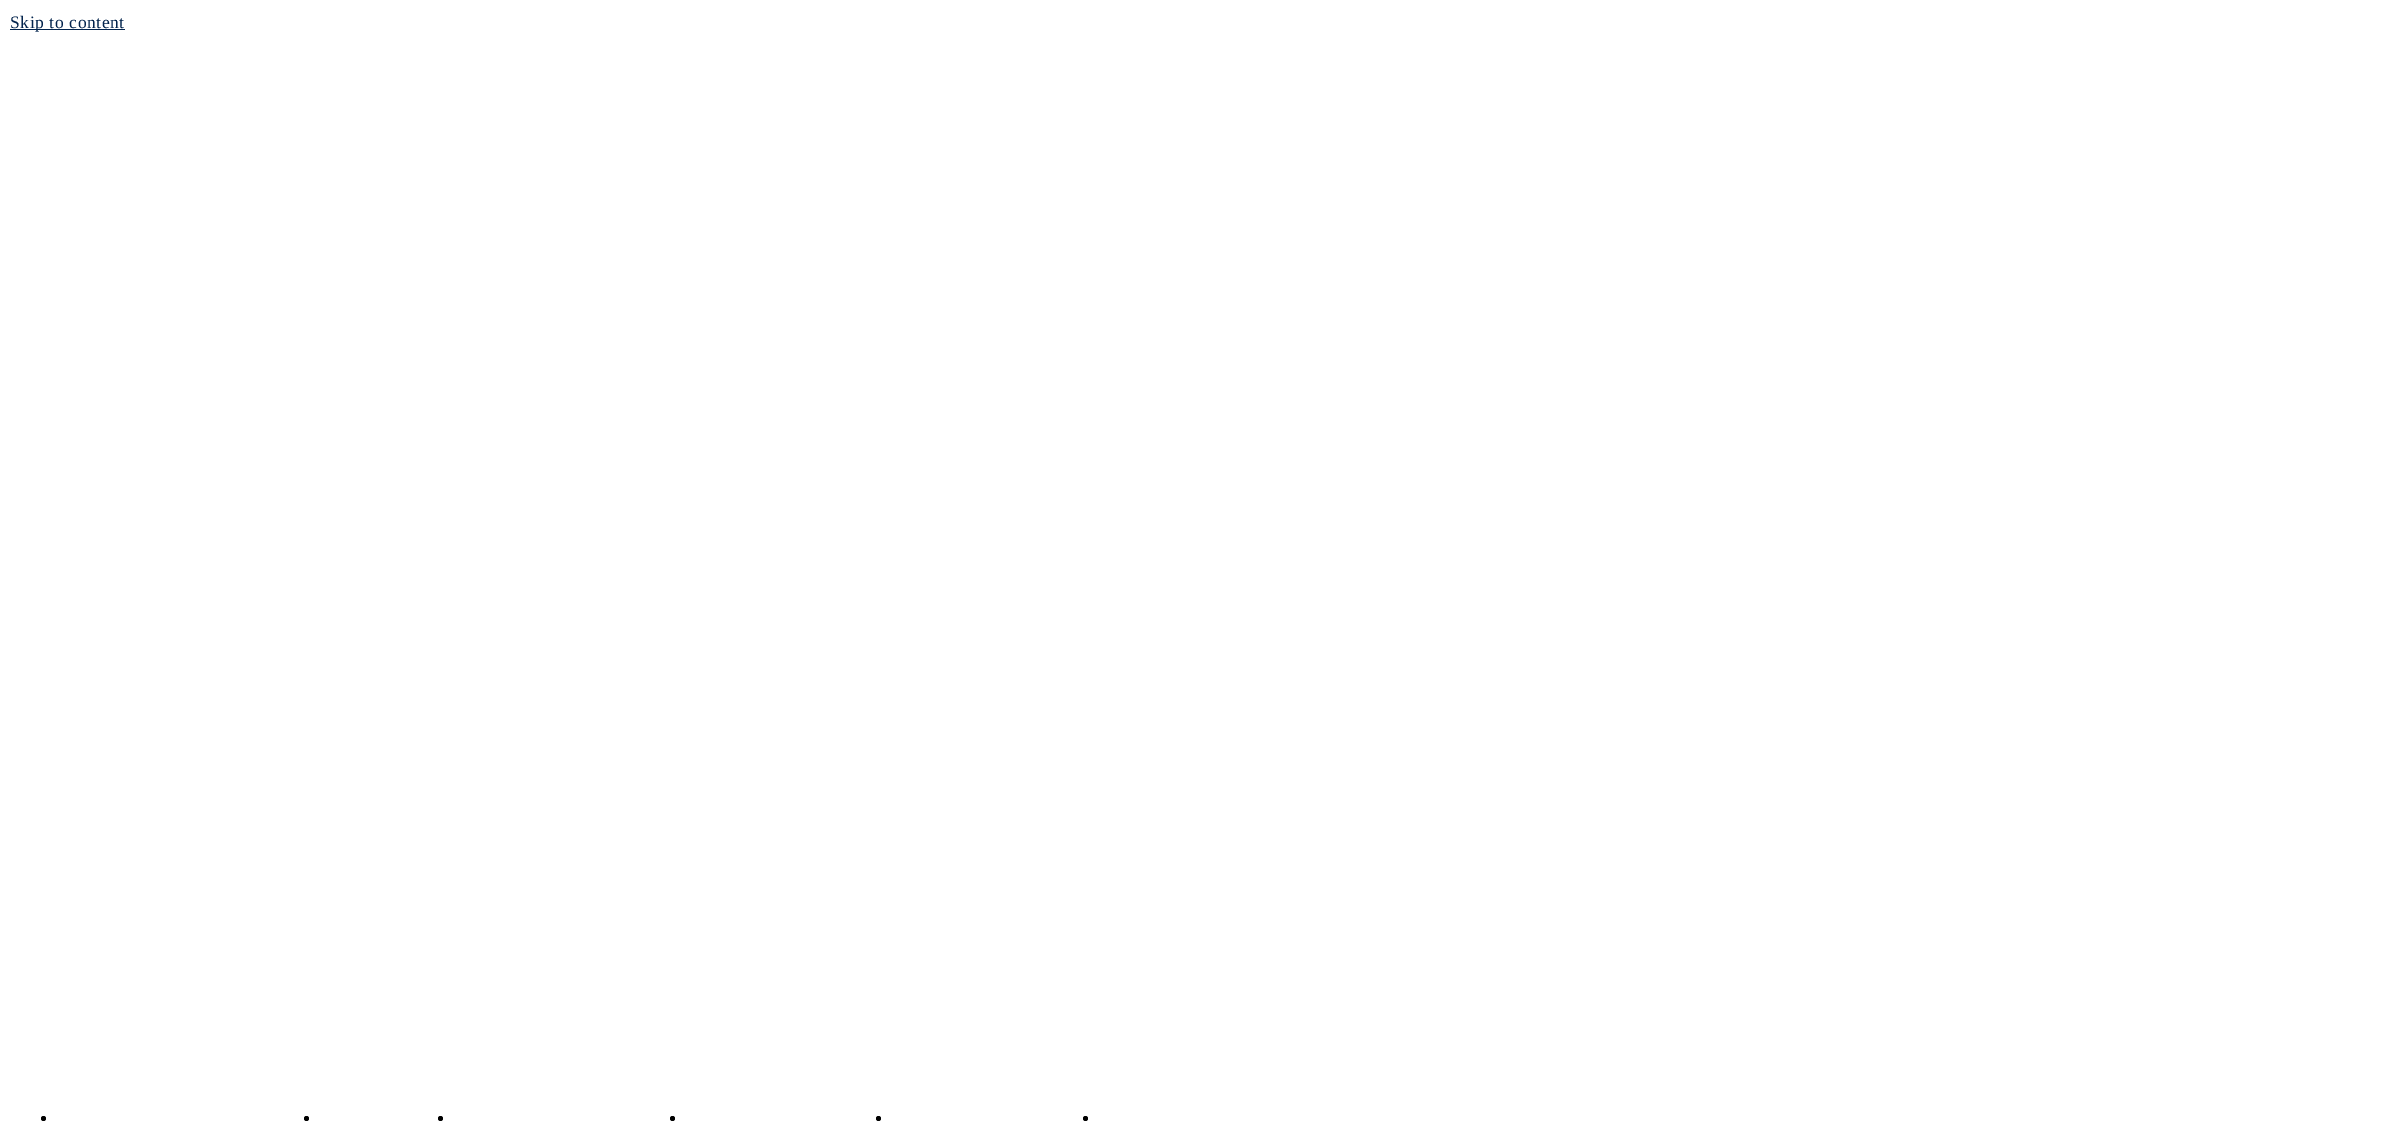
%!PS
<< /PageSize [2385 1128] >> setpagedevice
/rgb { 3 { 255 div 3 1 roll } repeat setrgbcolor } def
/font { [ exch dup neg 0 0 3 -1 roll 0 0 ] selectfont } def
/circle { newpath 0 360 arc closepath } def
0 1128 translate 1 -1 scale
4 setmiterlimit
255 255 255 rgb
0 0 2385 1128 rectfill
3 36 77 rgb
10 29 115 1 rectfill
0 0 0 rgb
43.5 1118.5 2.5 circle fill
306.5 1118.5 2.5 circle fill
440.5 1118.5 2.5 circle fill
672.5 1118.5 2.5 circle fill
878.5 1118.5 2.5 circle fill
1085.5 1118.5 2.5 circle fill
/LiberationSerif-Regular 17.5 font
3 36 77 rgb
10 28 moveto 0.6 0 (Skip to content) ashow
showpage
